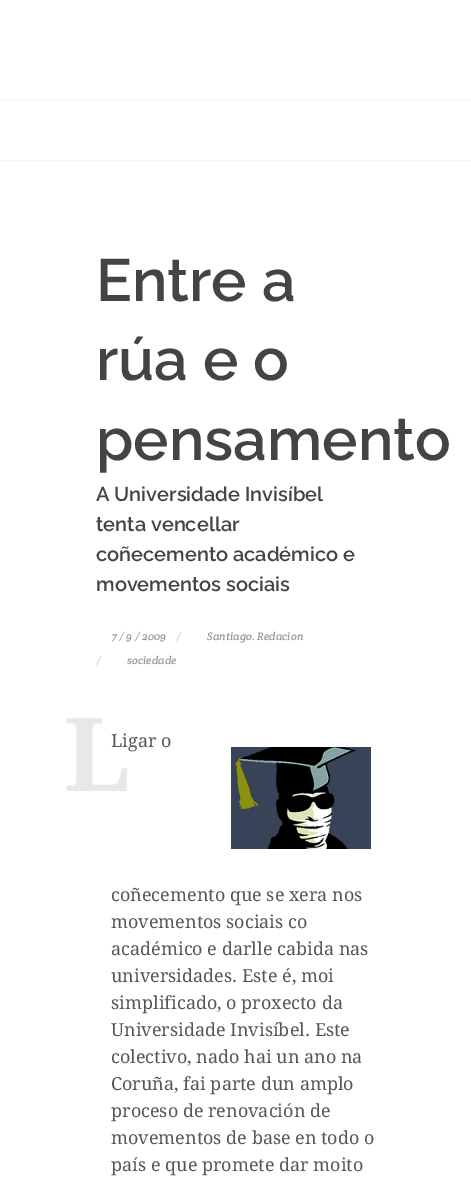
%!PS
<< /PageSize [471 1191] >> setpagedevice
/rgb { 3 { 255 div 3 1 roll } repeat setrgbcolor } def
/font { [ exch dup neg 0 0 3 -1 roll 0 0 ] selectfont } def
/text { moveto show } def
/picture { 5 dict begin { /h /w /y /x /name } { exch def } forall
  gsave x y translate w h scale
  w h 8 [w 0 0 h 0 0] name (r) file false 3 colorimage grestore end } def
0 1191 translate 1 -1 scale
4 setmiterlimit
255 255 255 rgb
0 0 471 1191 rectfill
245 245 245 rgb
0 160 471 1 rectfill
0 100 471 1 rectfill
(img_01.rgb) 231 747 140 102 picture
/Raleway-SemiBold 59.5 font
68 68 68 rgb
(Entre a) 96 301 text
(rúa e o) 96 380 text
(pensamento) 96 460 text
/Raleway-SemiBold 20 font
(A Universidade Invisíbel) 96 501 text
(tenta vencellar) 96 531 text
(coñecemento académico e) 96 561 text
(movementos sociais) 96 591 text
/CreteRound-Italic 11 font
153 153 153 rgb
(7 / 9 / 2009) 112 640 text
204 204 204 rgb
(/) 176 640 text
153 153 153 rgb
(Santiago. Redacion) 207 640 text
204 204 204 rgb
(/) 96 664 text
153 153 153 rgb
(sociedade) 127 664 text
/DroidSerif-Regular 18 font
85 85 85 rgb
(Ligar o) 111 747 text
/DroidSerif-Bold 102 font
232 232 232 rgb
(L) 64 791 text
/DroidSerif-Regular 18 font
85 85 85 rgb
(coñecemento que se xera nos) 111 901 text
(movementos sociais co) 111 928 text
(académico e darlle cabida nas) 111 955 text
(universidades. Este é, moi) 111 982 text
(simplificado, o proxecto da) 111 1009 text
(Universidade Invisíbel. Este) 111 1036 text
(colectivo, nado hai un ano na) 111 1063 text
(Coruña, fai parte dun amplo) 111 1090 text
(proceso de renovación de) 111 1117 text
(movementos de base en todo o) 111 1144 text
(país e que promete dar moito) 111 1171 text
showpage
